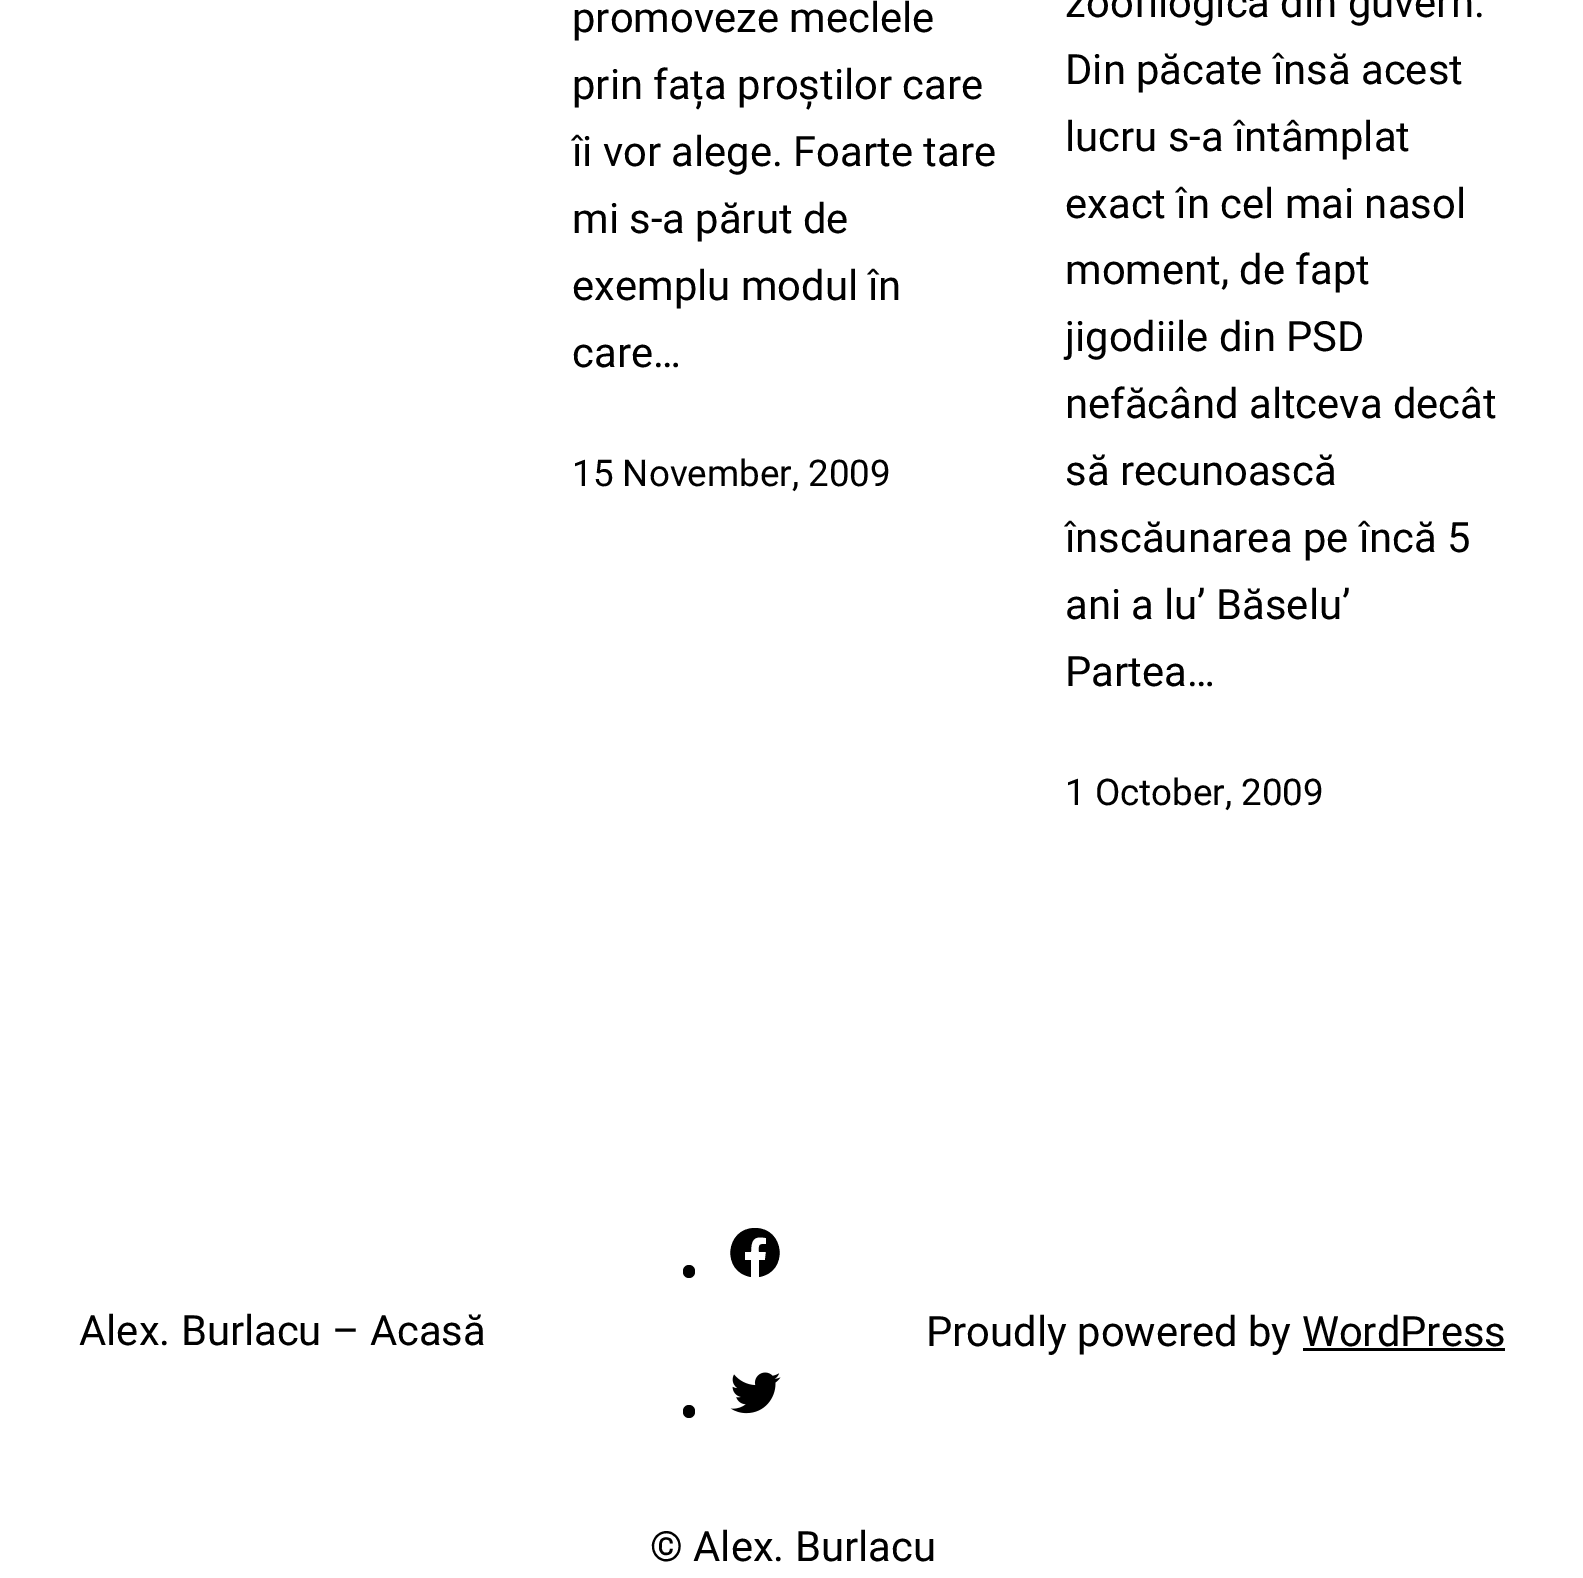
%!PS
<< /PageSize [1583 1578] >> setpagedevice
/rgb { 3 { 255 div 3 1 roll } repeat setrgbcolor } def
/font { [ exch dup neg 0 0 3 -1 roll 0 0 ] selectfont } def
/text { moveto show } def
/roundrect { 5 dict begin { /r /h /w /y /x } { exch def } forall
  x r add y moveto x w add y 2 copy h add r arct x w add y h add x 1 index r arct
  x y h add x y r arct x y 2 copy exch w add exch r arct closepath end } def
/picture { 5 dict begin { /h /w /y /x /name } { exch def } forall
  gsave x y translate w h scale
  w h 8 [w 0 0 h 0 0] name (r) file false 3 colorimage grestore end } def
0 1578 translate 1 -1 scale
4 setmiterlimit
255 255 255 rgb
0 0 1583 1578 rectfill
0 0 0 rgb
683 1265 12 13 6 roundrect fill
755 1228 moveto -30 0 -34 44 -4 49 rcurveto 0 -17 rlineto -6 0 rlineto 0 -8 rlineto 6 0 rlineto 0 -11 2 -17 15 -14 rcurveto 0 6 rlineto -8 0 -7 1 -7 8 rcurveto 7 0 rlineto -1 8 rlineto -6 0 rlineto 0 17 rlineto 30 -5 26 -49 -4 -49 rcurveto closepath fill
683 1405 12 13 6 roundrect fill
(img_01.rgb) 730 1372 51 42 picture
1303 1348 202 3 rectfill
/Roboto-Regular 41.75 font
(promoveze meclele) 572 32 text
(prin fața proștilor care) 572 99 text
(îi vor alege. Foarte tare) 572 166 text
(mi s-a părut de) 572 233 text
(exemplu modul în) 572 300 text
(care…) 572 367 text
/Roboto-Regular 36.75 font
(15 November, 2009) 572 486 text
/Roboto-Regular 41.75 font
(zoofilogică din guvern.) 1065 17 text
(Din păcate însă acest) 1065 84 text
(lucru s-a întâmplat) 1065 151 text
(exact în cel mai nasol) 1065 218 text
(moment, de fapt) 1065 284 text
(jigodiile din PSD) 1065 351 text
(nefăcând altceva decât) 1065 418 text
(să recunoască) 1065 485 text
(înscăunarea pe încă 5) 1065 552 text
(ani a lu’ Băselu’) 1065 619 text
(Partea…) 1065 686 text
/Roboto-Regular 36.75 font
(1 October, 2009) 1065 805 text
/Roboto-Regular 41.75 font
(Alex. Burlacu – Acasă) 79 1345 text
(Proudly powered by WordPress) 926 1346 text
(© Alex. Burlacu) 650 1561 text
showpage
